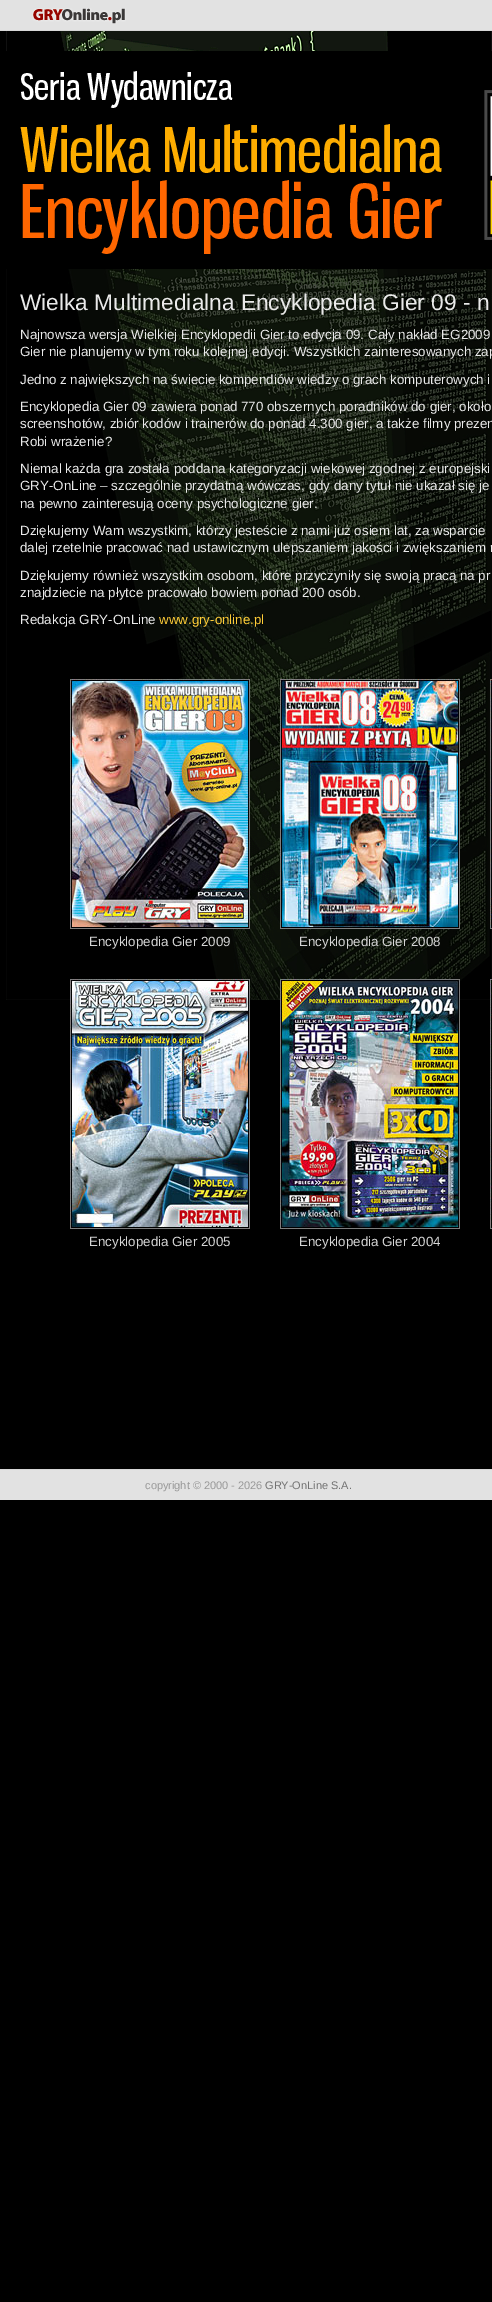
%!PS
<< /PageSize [492 2302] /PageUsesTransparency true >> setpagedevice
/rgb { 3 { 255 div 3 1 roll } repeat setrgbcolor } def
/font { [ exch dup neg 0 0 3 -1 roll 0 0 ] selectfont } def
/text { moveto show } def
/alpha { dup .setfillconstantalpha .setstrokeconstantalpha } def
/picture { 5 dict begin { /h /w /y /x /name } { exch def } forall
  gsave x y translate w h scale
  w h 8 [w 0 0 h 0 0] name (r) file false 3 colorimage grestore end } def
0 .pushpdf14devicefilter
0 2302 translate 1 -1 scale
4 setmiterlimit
0 0 0 rgb
0 0 492 2302 rectfill
(img_01.rgb) 6 31 486 969 picture
226 226 226 rgb
0 0 492 30 rectfill
215 215 215 rgb
0 30 492 1 rectfill
(img_02.rgb) 32 8 94 16 picture
(img_03.rgb) 6 51 486 218 picture
0.7 alpha
0 0 0 rgb
6 269 486 731 rectfill
1 alpha
(img_04.rgb) 490 679 2 250 picture
(img_05.rgb) 70 679 180 250 picture
(img_06.rgb) 280 679 180 250 picture
(img_07.rgb) 490 979 2 250 picture
(img_08.rgb) 70 979 180 250 picture
(img_09.rgb) 280 979 180 250 picture
226 226 226 rgb
0 1470 492 30 rectfill
215 215 215 rgb
0 1469 492 1 rectfill
/LiberationSans-Regular 22.7 font
234 234 234 rgb
(Wielka Multimedialna Encyklopedia Gier 09 - n) 20 310 text
/LiberationSans-Regular 13.35 font
(Najnowsza wersja Wielkiej Encyklopedii Gier to edycja 09. Cały nakład EG2009) 20 339 text
(Gier nie planujemy w tym roku kolejnej edycji. Wszystkich zainteresowanych zap) 20 356 text
(Jedno z największych na świecie kompendiów wiedzy o grach komputerowych i) 20 384 text
(Encyklopedia Gier 09 zawiera ponad 770 obszernych poradników do gier, około) 20 411 text
(screenshotów, zbiór kodów i trainerów do ponad 4.300 gier, a także filmy prezen) 20 428 text
(Robi wrażenie?) 20 446 text
(Niemal każda gra została poddana kategoryzacji wiekowej zgodnej z europejski) 20 473 text
(GRY-OnLine – szczególnie przydatną wówczas, gdy dany tytuł nie ukazał się je) 20 490 text
(na pewno zainteresują oceny psychologiczne gier.) 20 508 text
(Dziękujemy Wam wszystkim, którzy jesteście z nami już osiem lat, za wsparcie) 20 535 text
(dalej rzetelnie pracować nad ustawicznym ulepszaniem jakości i zwiększaniem r) 20 552 text
(Dziękujemy również wszystkim osobom, które przyczyniły się swoją pracą na pr) 20 580 text
(znajdziecie na płytce pracowało bowiem ponad 200 osób.) 20 597 text
(Redakcja GRY-OnLine) 20 624 text
255 204 55 rgb
(www.gry-online.pl) 159 624 text
213 213 213 rgb
(Encyklopedia Gier 2009) 89 946 text
(Encyklopedia Gier 2008) 299 946 text
(Encyklopedia Gier 2005) 89 1246 text
(Encyklopedia Gier 2004) 299 1246 text
/LiberationSans-Regular 11 font
152 152 152 rgb
(copyright © 2000 - 2026) 145 1489 text
114 114 114 rgb
(GRY-OnLine S.A.) 265 1489 text
.poppdf14devicefilter showpage
